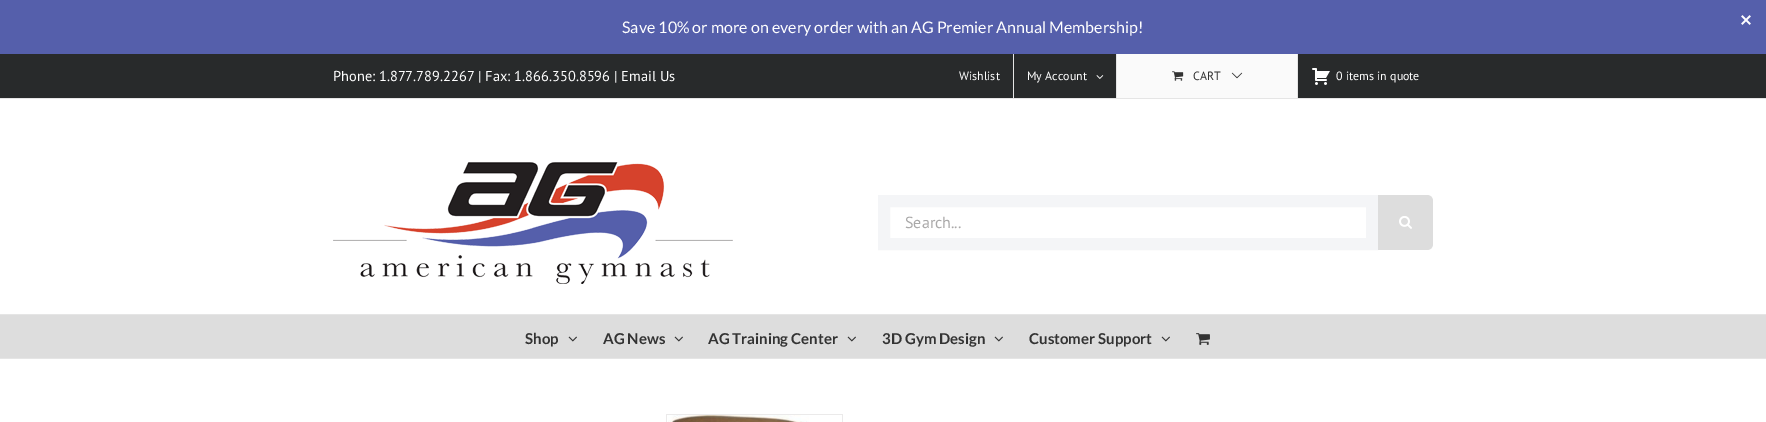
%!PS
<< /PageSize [1766 422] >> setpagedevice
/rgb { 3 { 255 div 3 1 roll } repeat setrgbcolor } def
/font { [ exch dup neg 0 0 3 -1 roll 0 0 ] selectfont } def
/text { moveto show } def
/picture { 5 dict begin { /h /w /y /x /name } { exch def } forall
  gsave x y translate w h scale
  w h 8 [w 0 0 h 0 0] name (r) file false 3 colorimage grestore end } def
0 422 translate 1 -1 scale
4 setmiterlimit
255 255 255 rgb
0 0 1766 422 rectfill
85 95 171 rgb
0 0 1766 54 rectfill
(img_01.rgb) 1741 15 10 10 picture
40 42 43 rgb
0 54 1766 44 rectfill
229 229 229 rgb
0 98 1766 1 rectfill
1013 54 1 44 rectfill
(img_02.rgb) 1096 75 8 4 picture
1116 54 1 44 rectfill
250 250 250 rgb
1117 54 180 44 rectfill
(img_03.rgb) 1172 71 12 10 picture
(img_04.rgb) 1231 72 12 7 picture
229 229 229 rgb
1297 54 1 44 rectfill
(img_05.rgb) 1312 68 18 17 picture
0 314 1766 1 rectfill
(img_06.rgb) 333 162 400 122 picture
244 245 247 rgb
12 setlinewidth
884 201 488 43 rectstroke
221 221 221 rgb
1378 195 moveto 49 0 rlineto 3.5 0 6 2.5 6 6 rcurveto 0 43 rlineto 0 3.5 -2.5 6 -6 6 rcurveto -49 0 rlineto closepath fill
(img_07.rgb) 1399 216 13 13 picture
0 315 1766 43 rectfill
229 229 229 rgb
0 358 1766 1 rectfill
(img_08.rgb) 568 336 9 6 picture
(img_08.rgb) 674 336 9 6 picture
(img_08.rgb) 847 336 9 6 picture
(img_08.rgb) 994 336 9 6 picture
(img_08.rgb) 1161 336 9 6 picture
(img_09.rgb) 1196 333 14 12 picture
235 234 234 rgb
666 414 177 1 rectfill
842 414 1 8 rectfill
666 414 1 8 rectfill
(img_10.rgb) 668 415 141 7 picture
/Lato-Regular 16 font
255 255 255 rgb
(Save 10% or more on every order with an AG Premier Annual Membership!) 622 33 text
/PTSans-Regular 14.4 font
(Phone: 1.877.789.2267 | Fax: 1.866.350.8596 | Email Us) 333 81 text
/PTSans-Regular 12 font
(Wishlist) 959 80 text
(My Account) 1027 80 text
51 51 51 rgb
(CART) 1193 80 text
255 255 255 rgb
(0 items in quote) 1336 80 text
/PTSans-Regular 16 font
170 169 169 rgb
(Search...) 905 228 text
/Lato-Bold 15 font
51 51 51 rgb
(Shop) 525 344 text
(AG News) 603 344 text
(AG Training Center) 708 344 text
(3D Gym Design) 882 344 text
(Customer Support) 1029 344 text
showpage
